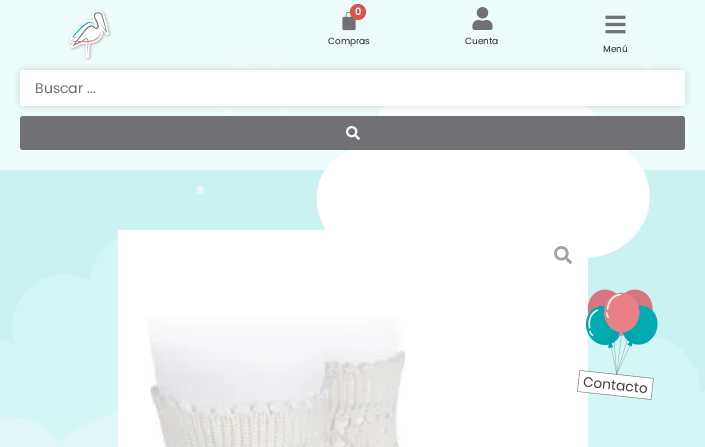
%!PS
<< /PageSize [705 447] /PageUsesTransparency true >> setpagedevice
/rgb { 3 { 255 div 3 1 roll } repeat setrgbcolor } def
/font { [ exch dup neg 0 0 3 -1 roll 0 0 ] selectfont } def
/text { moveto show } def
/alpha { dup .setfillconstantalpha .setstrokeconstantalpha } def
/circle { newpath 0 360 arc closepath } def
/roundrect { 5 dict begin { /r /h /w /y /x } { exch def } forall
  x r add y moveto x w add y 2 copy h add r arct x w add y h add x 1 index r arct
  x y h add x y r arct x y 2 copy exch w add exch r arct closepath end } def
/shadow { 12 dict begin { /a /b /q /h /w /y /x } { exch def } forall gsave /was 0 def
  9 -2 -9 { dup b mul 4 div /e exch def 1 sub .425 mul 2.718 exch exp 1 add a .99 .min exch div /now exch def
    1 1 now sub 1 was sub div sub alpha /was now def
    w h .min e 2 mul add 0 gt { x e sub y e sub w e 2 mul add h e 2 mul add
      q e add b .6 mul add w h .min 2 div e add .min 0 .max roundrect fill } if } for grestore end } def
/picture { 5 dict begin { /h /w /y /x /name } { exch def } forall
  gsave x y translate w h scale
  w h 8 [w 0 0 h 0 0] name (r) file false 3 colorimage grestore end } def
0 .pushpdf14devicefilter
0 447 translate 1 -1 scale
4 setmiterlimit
255 255 255 rgb
0 0 705 447 rectfill
(img_01.rgb) 0 0 705 447 picture
0.69 alpha
0 0 705 170 rectfill
1 alpha
(img_02.rgb) 68 9 44 52 picture
(img_03.rgb) 342 11 14 20 picture
217 83 79 rgb
358 12 8 circle fill
(img_04.rgb) 472 7 21 23 picture
(img_05.rgb) 605 15 21 19 picture
113 112 117 rgb
20 116 665 34 3 roundrect fill
0 0 0 rgb
25 75 655 26 0 5 0.5 shadow
255 255 255 rgb
20 70 665 36 3 roundrect fill
(img_06.rgb) 346 126 14 14 picture
118 230 470 217 rectfill
(img_07.rgb) 554 246 18 18 picture
(img_08.rgb) 147 317 259 130 picture
(img_09.rgb) 577 289 81 111 picture
/Poppins-SemiBold 10 font
(0) 355 15 text
/Poppins-Regular 9 font
37 37 37 rgb
(Compras) 328 44 text
(Cuenta) 465 44 text
(Menú) 603 52 text
/Poppins-Regular 14 font
113 112 117 rgb
(Buscar ...) 35 93 text
.poppdf14devicefilter showpage
